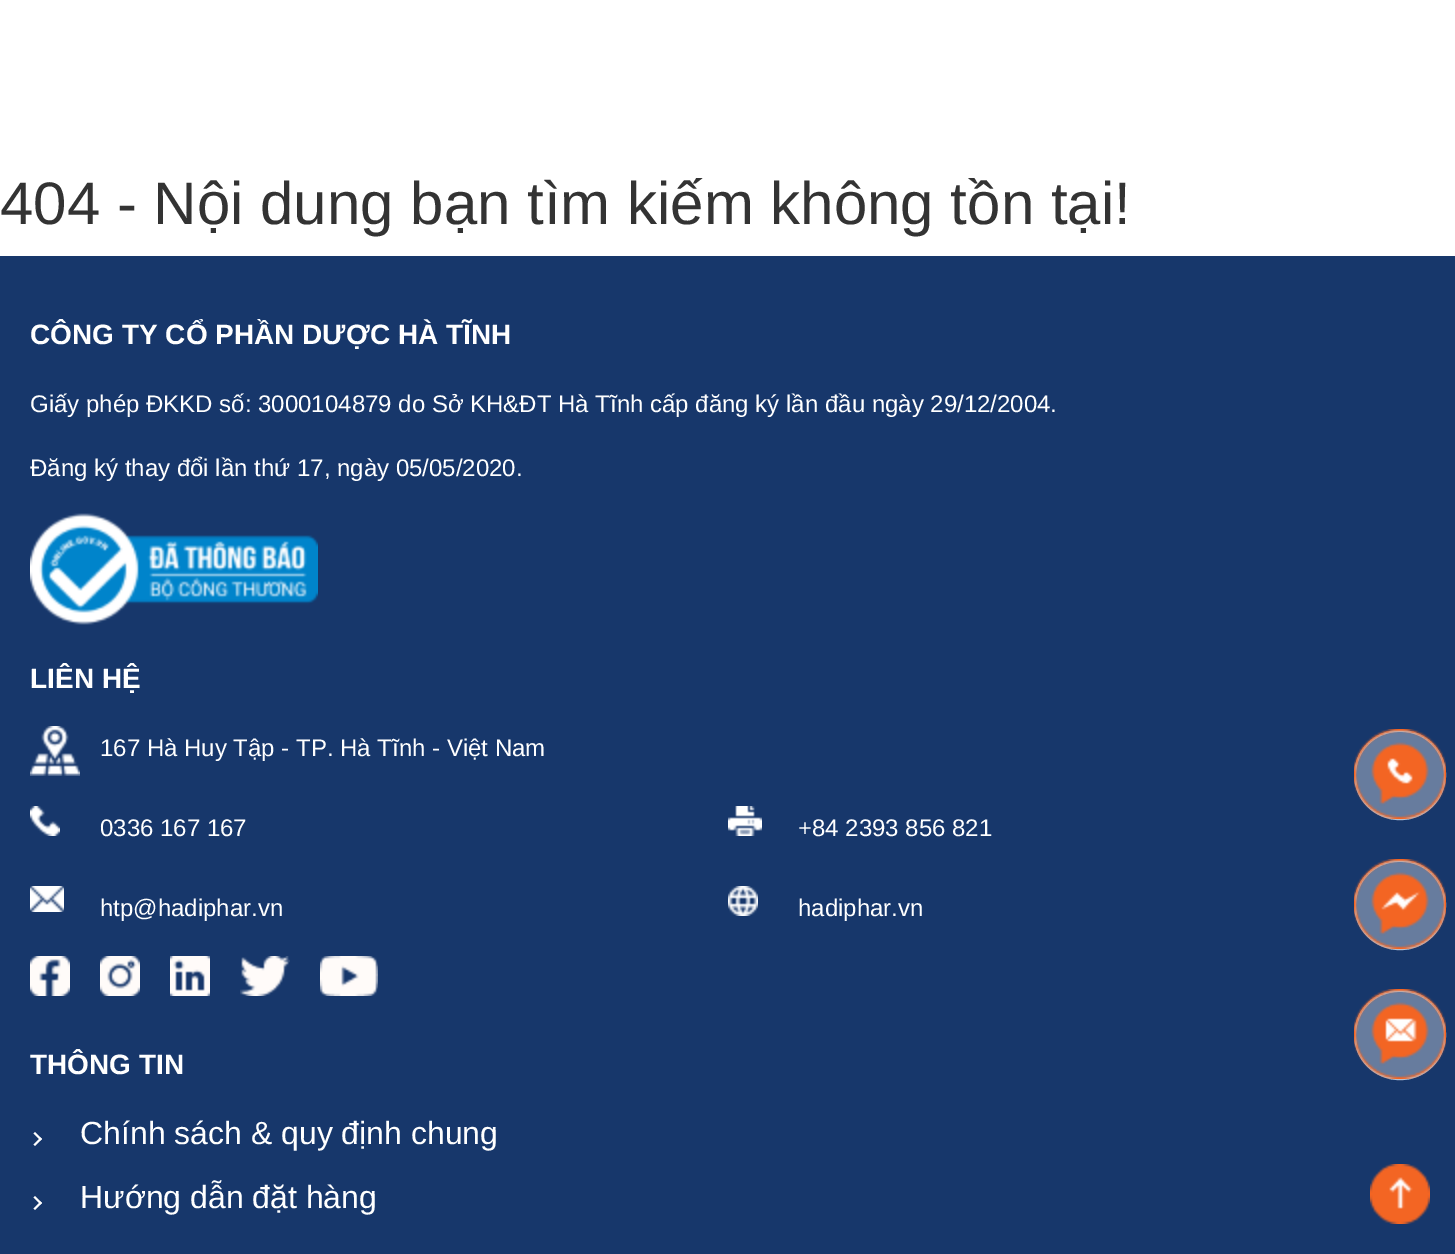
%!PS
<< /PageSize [1455 1254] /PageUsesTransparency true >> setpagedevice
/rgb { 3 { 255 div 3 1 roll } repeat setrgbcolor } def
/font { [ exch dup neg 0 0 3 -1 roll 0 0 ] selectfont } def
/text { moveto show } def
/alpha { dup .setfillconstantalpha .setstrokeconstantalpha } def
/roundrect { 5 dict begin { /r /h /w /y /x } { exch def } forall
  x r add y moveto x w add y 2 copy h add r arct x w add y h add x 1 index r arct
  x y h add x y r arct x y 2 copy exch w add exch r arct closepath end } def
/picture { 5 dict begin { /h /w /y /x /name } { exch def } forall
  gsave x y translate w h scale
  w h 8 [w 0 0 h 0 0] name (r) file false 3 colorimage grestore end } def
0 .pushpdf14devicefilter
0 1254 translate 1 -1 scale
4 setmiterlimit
255 255 255 rgb
0 0 1455 1254 rectfill
23 55 107 rgb
0 256 1455 998 rectfill
(img_01.rgb) 30 513 288 112 picture
(img_02.rgb) 30 726 50 50 picture
(img_03.rgb) 30 806 30 30 picture
(img_04.rgb) 728 806 34 30 picture
(img_05.rgb) 30 886 34 26 picture
(img_06.rgb) 728 886 30 30 picture
(img_07.rgb) 30 956 40 40 picture
(img_08.rgb) 100 956 40 40 picture
(img_09.rgb) 170 956 40 40 picture
(img_10.rgb) 240 956 50 40 picture
(img_11.rgb) 320 956 58 40 picture
255 255 255 rgb
35 1132 moveto 7 7 rlineto -1.5 1.5 rlineto -7 -7 rlineto closepath fill
40.5 1137.5 moveto 1.5 1.5 rlineto -7 7 rlineto -1.5 -1.5 rlineto closepath fill
35 1196 moveto 7 7 rlineto -1.5 1.5 rlineto -7 -7 rlineto closepath fill
40.5 1201.5 moveto 1.5 1.5 rlineto -7 7 rlineto -1.5 -1.5 rlineto closepath fill
67 93 135 rgb
1354 730 92 90 45 roundrect fill
0.31 alpha
255 255 255 rgb
2 setlinewidth
1355 731 90 88 44 roundrect stroke
0.19 alpha
1354 730 92 90 45 roundrect fill
0.31 alpha
1355 731 90 88 44 roundrect stroke
1 alpha
(img_12.rgb) 1354 729 92 90 picture
67 93 135 rgb
1354 860 92 90 45 roundrect fill
0.31 alpha
255 255 255 rgb
1355 861 90 88 44 roundrect stroke
0.19 alpha
1354 860 92 90 45 roundrect fill
0.31 alpha
1355 861 90 88 44 roundrect stroke
1 alpha
(img_13.rgb) 1354 859 92 90 picture
67 93 135 rgb
1354 990 92 90 45 roundrect fill
0.31 alpha
255 255 255 rgb
1355 991 90 88 44 roundrect stroke
0.19 alpha
1354 990 92 90 45 roundrect fill
0.31 alpha
1355 991 90 88 44 roundrect stroke
1 alpha
(img_14.rgb) 1354 989 92 90 picture
(img_15.rgb) 1370 1164 60 60 picture
/LiberationSans-Regular 60 font
51 51 51 rgb
(404 - Nội dung bạn tìm kiếm không tồn tại!) 0 224 text
/LiberationSans-Bold 28 font
255 255 255 rgb
(CÔNG TY CỔ PHẦN DƯỢC HÀ TĨNH) 30 344 text
/LiberationSans-Regular 24 font
(Giấy phép ĐKKD số: 3000104879 do Sở KH&ĐT Hà Tĩnh cấp đăng ký lần đầu ngày 29/12/2004.) 30 412 text
(Đăng ký thay đổi lần thứ 17, ngày 05/05/2020.) 30 476 text
/LiberationSans-Bold 28 font
(LIÊN HỆ) 30 688 text
/LiberationSans-Regular 24 font
(167 Hà Huy Tập - TP. Hà Tĩnh - Việt Nam) 100 756 text
(0336 167 167) 100 836 text
(+84 2393 856 821) 798 836 text
(htp@hadiphar.vn) 100 916 text
(hadiphar.vn) 798 916 text
/LiberationSans-Bold 28 font
(THÔNG TIN) 30 1074 text
/LiberationSans-Regular 32 font
(Chính sách & quy định chung) 80 1144 text
(Hướng dẫn đặt hàng) 80 1208 text
.poppdf14devicefilter showpage
